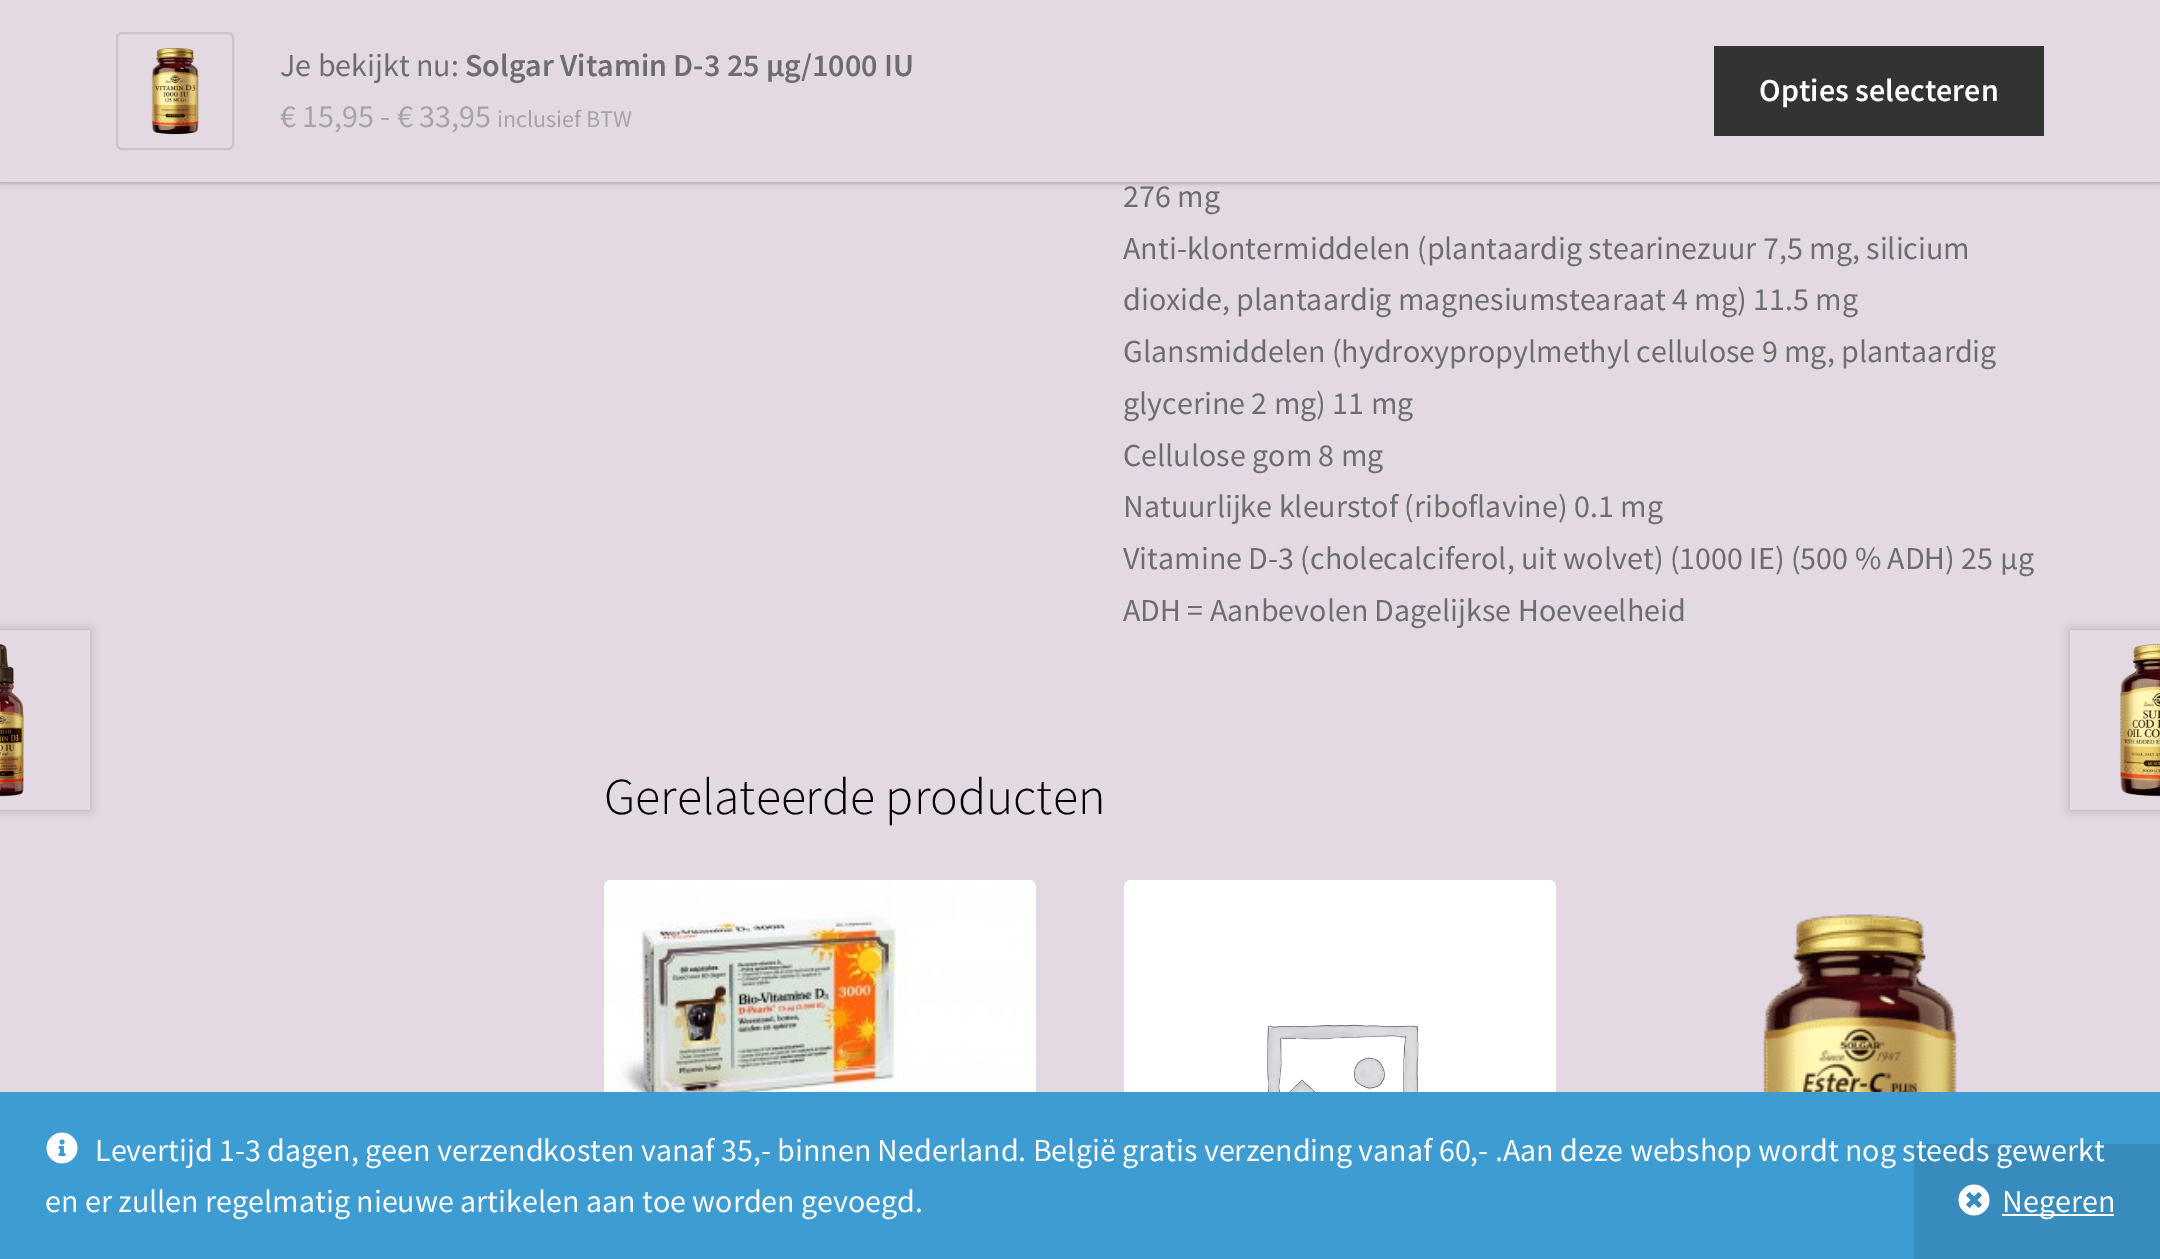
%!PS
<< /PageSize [2160 1259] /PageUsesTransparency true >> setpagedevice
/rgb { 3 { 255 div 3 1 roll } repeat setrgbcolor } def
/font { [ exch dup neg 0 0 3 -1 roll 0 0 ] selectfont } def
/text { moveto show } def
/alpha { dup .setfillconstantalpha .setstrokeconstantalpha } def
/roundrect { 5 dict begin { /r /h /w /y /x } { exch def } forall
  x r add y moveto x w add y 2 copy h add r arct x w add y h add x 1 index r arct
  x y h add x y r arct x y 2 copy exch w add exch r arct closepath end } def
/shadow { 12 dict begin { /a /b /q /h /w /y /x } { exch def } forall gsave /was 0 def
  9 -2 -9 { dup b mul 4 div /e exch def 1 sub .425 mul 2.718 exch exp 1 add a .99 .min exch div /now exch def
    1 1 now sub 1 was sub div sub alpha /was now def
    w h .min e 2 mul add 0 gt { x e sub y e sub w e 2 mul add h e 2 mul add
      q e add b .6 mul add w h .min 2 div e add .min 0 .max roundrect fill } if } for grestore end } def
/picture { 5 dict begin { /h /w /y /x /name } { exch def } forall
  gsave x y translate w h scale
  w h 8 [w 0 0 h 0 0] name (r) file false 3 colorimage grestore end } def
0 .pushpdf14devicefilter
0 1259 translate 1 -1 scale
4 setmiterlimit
226 217 226 rgb
0 0 2160 1259 rectfill
0 0 0 rgb
0 2 2160 182 0 2 0.2 shadow
226 217 226 rgb
0 0 2160 182 rectfill
203 195 203 rgb
2 setlinewidth
117 33 116 116 5 roundrect stroke
(img_01.rgb) 151 48 48 87 picture
51 51 51 rgb
1714 46 330 90 rectfill
gsave
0 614 moveto 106 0 rlineto 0 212 rlineto -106 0 rlineto closepath -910 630 moveto 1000 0 rlineto 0 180 rlineto -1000 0 rlineto closepath eoclip newpath
0 0 0 rgb
-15 630 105 180 0 5 0.2 shadow
grestore
(img_02.rgb) 0 644 24 153 picture
gsave
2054 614 moveto 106 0 rlineto 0 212 rlineto -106 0 rlineto closepath 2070 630 moveto 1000 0 rlineto 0 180 rlineto -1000 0 rlineto closepath eoclip newpath
0 0 0 rgb
2070 630 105 180 0 5 0.2 shadow
grestore
(img_03.rgb) 2119 644 41 153 picture
(img_04.rgb) 604 880 432 212 picture
(img_05.rgb) 1124 880 432 212 picture
(img_06.rgb) 1763 914 195 178 picture
61 156 210 rgb
0 1092 2160 167 rectfill
(img_07.rgb) 46 1132 32 32 picture
55 140 189 rgb
1914 1144 246 115 rectfill
(img_08.rgb) 1958 1184 32 32 picture
255 255 255 rgb
2002 1214 112 2 rectfill
/SourceSansPro-Regular 32 font
109 109 109 rgb
(Je bekijkt nu:) 280 76 text
/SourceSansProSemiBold-SemiBold 32 font
(Solgar Vitamin D-3 25 µg/1000 IU) 465 76 text
/SourceSansPro-Regular 32 font
168 163 168 rgb
(€ 15,95 - € 33,95) 280 127 text
/SourceSansPro-Regular 24 font
(inclusief BTW) 497 127 text
/SourceSansProSemiBold-SemiBold 32 font
255 255 255 rgb
(Opties selecteren) 1759 101 text
/SourceSansPro-Regular 32 font
109 109 109 rgb
(276 mg) 1123 207 text
(Anti-klontermiddelen \(plantaardig stearinezuur 7,5 mg, silicium) 1123 259 text
(dioxide, plantaardig magnesiumstearaat 4 mg\) 11.5 mg) 1123 310 text
(Glansmiddelen \(hydroxypropylmethyl cellulose 9 mg, plantaardig) 1123 362 text
(glycerine 2 mg\) 11 mg) 1123 414 text
(Cellulose gom 8 mg) 1123 466 text
(Natuurlijke kleurstof \(riboflavine\) 0.1 mg) 1123 517 text
(Vitamine D-3 \(cholecalciferol, uit wolvet\) \(1000 IE\) \(500 % ADH\) 25 µg) 1123 569 text
(ADH = Aanbevolen Dagelijkse Hoeveelheid) 1123 621 text
/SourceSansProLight-Light 51.75 font
0 0 0 rgb
(Gerelateerde producten) 604 814 text
/SourceSansPro-Regular 32 font
255 255 255 rgb
(Levertijd 1-3 dagen, geen verzendkosten vanaf 35,- binnen Nederland. België gratis verzending vanaf 60,- .Aan deze webshop wordt nog steeds gewerkt) 95 1161 text
(en er zullen regelmatig nieuwe artikelen aan toe worden gevoegd.) 45 1212 text
(Negeren) 2002 1212 text
.poppdf14devicefilter showpage
